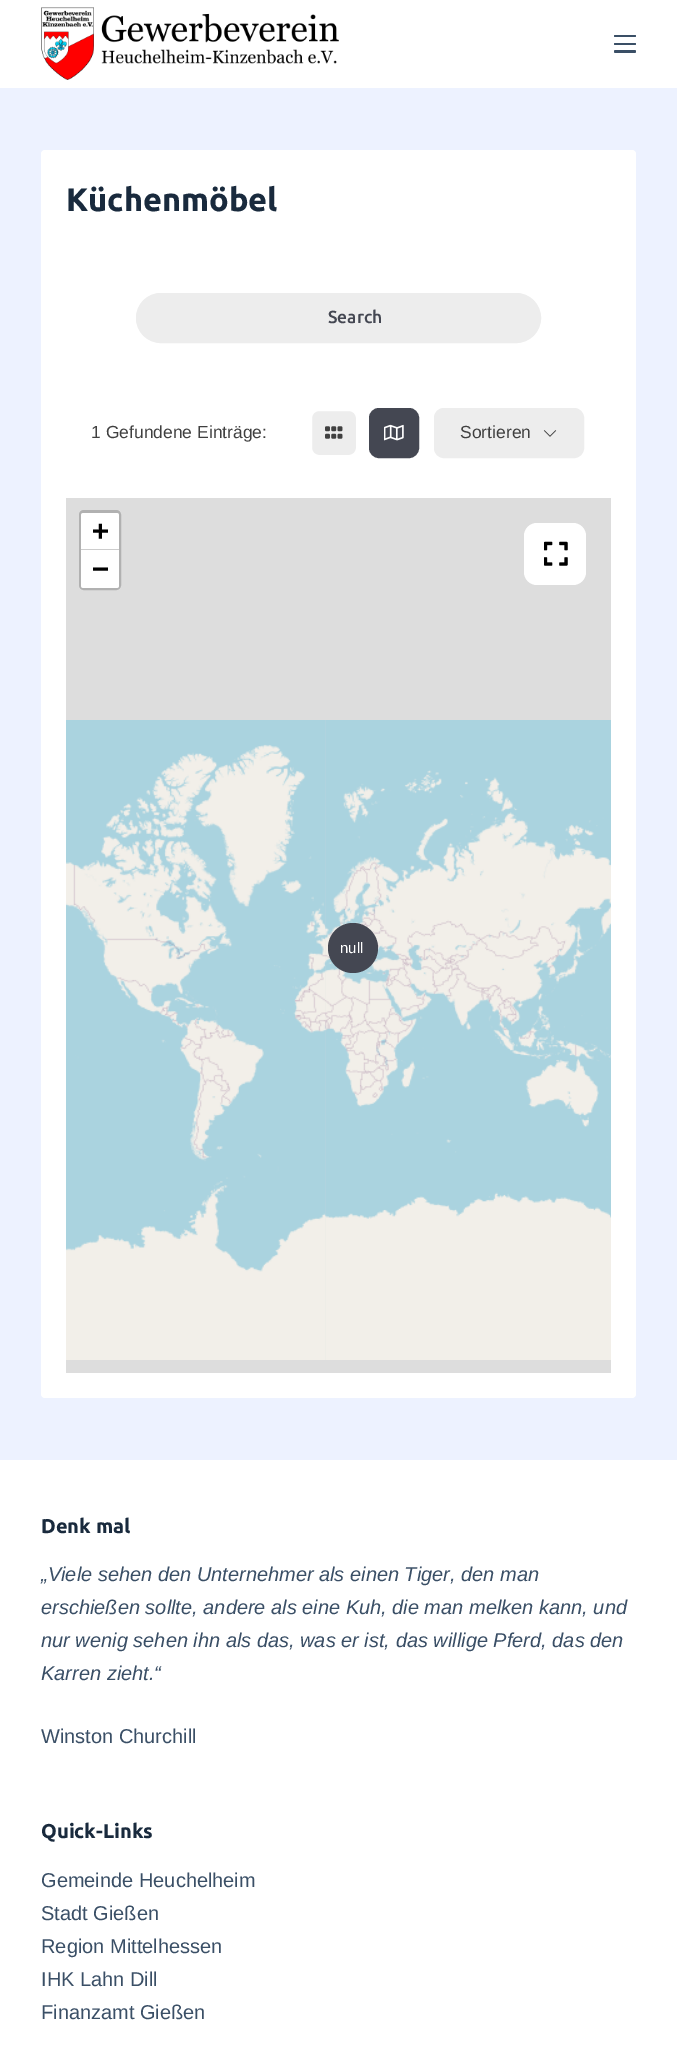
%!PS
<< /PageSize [677 2059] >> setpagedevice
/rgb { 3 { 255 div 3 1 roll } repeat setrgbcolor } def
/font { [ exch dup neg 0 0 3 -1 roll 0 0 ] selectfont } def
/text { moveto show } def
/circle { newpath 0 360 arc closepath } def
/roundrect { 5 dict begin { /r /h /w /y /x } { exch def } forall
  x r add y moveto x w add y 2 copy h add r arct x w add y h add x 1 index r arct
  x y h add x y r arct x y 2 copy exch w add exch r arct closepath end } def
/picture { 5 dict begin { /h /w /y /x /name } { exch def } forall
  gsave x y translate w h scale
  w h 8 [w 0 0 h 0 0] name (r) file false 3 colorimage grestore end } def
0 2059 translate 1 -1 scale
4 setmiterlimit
237 242 255 rgb
0 0 677 2059 rectfill
255 255 255 rgb
0 0 677 88 rectfill
(img_01.rgb) 41 7 298 73 picture
58 79 102 rgb
614 35 22 2 1 roundrect fill
614 43 22 2 1 roundrect fill
614 50 22 3 1.5 roundrect fill
255 255 255 rgb
41 150 595 1248 4 roundrect fill
237 237 237 rgb
136.5 293.5 404 49 24.5 roundrect gsave fill grestore
stroke
310.5 409.5 47 47 8.5 roundrect gsave fill grestore
255 255 255 rgb
3 setlinewidth
stroke
(img_02.rgb) 325 426 18 13 picture
68 71 82 rgb
370.5 409.5 47 47 8.5 roundrect gsave fill grestore
stroke
(img_03.rgb) 384 424 20 17 picture
237 237 237 rgb
434.5 408.5 149 49 9.5 roundrect gsave fill grestore
1 setlinewidth
stroke
(img_04.rgb) 543 430 14 7 picture
221 221 221 rgb
66 498 545 875 rectfill
177 177 177 rgb
3 setlinewidth
80.5 511.5 39 77 3.5 roundrect stroke
255 255 255 rgb
83.5 513 moveto 33 0 rlineto 1.5 0 2.5 1 2.5 2.5 rcurveto 0 34.5 rlineto -38 0 rlineto 0 -34.5 rlineto 0 -1.5 1 -2.5 2.5 -2.5 rcurveto closepath fill
204 204 204 rgb
81 549 38 1 rectfill
255 255 255 rgb
81 550 moveto 38 0 rlineto 0 35.5 rlineto 0 1.5 -1 2.5 -2.5 2.5 rcurveto -33 0 rlineto -1.5 0 -2.5 -1 -2.5 -2.5 rcurveto closepath fill
524 523 62 62 13 roundrect fill
(img_05.rgb) 544 541 24 25 picture
(img_06.rgb) 66 720 259 320 picture
(img_07.rgb) 325 720 286 320 picture
(img_08.rgb) 66 1040 259 320 picture
(img_09.rgb) 325 1040 286 320 picture
68 71 82 rgb
353 948 25 circle fill
255 255 255 rgb
0 1460 677 599 rectfill
/Ubuntu-Bold 32.5 font
25 42 61 rgb
(Küchenmöbel) 66 211 text
/Ubuntu-Medium 17.5 font
68 71 82 rgb
(Search) 328 323 text
/LiberationSans-Regular 17.5 font
64 64 64 rgb
(1 Gefundene Einträge:) 91 438 text
(Sortieren) 460 438 text
/DejaVuSansMono-Bold 28 font
0 0 0 rgb
(+) 92 540 text
(−) 92 578 text
/LiberationSans-Regular 15 font
255 255 255 rgb
(null) 340 953 text
/Ubuntu-Bold 20 font
25 42 61 rgb
(Denk mal) 41 1533 text
/LiberationSans-Italic 20 font
58 79 102 rgb
(„Viele sehen den Unternehmer als einen Tiger, den man) 41 1581 text
(erschießen sollte, andere als eine Kuh, die man melken kann, und) 41 1614 text
(nur wenig sehen ihn als das, was er ist, das willige Pferd, das den) 41 1647 text
(Karren zieht.“) 41 1680 text
/LiberationSans-Regular 20 font
(Winston Churchill) 41 1743 text
/Ubuntu-Bold 20 font
25 42 61 rgb
(Quick-Links) 41 1838 text
/LiberationSans-Regular 20 font
58 79 102 rgb
(Gemeinde Heuchelheim) 41 1887 text
(Stadt Gießen) 41 1920 text
(Region Mittelhessen) 41 1953 text
(IHK Lahn Dill) 41 1986 text
(Finanzamt Gießen) 41 2019 text
showpage
